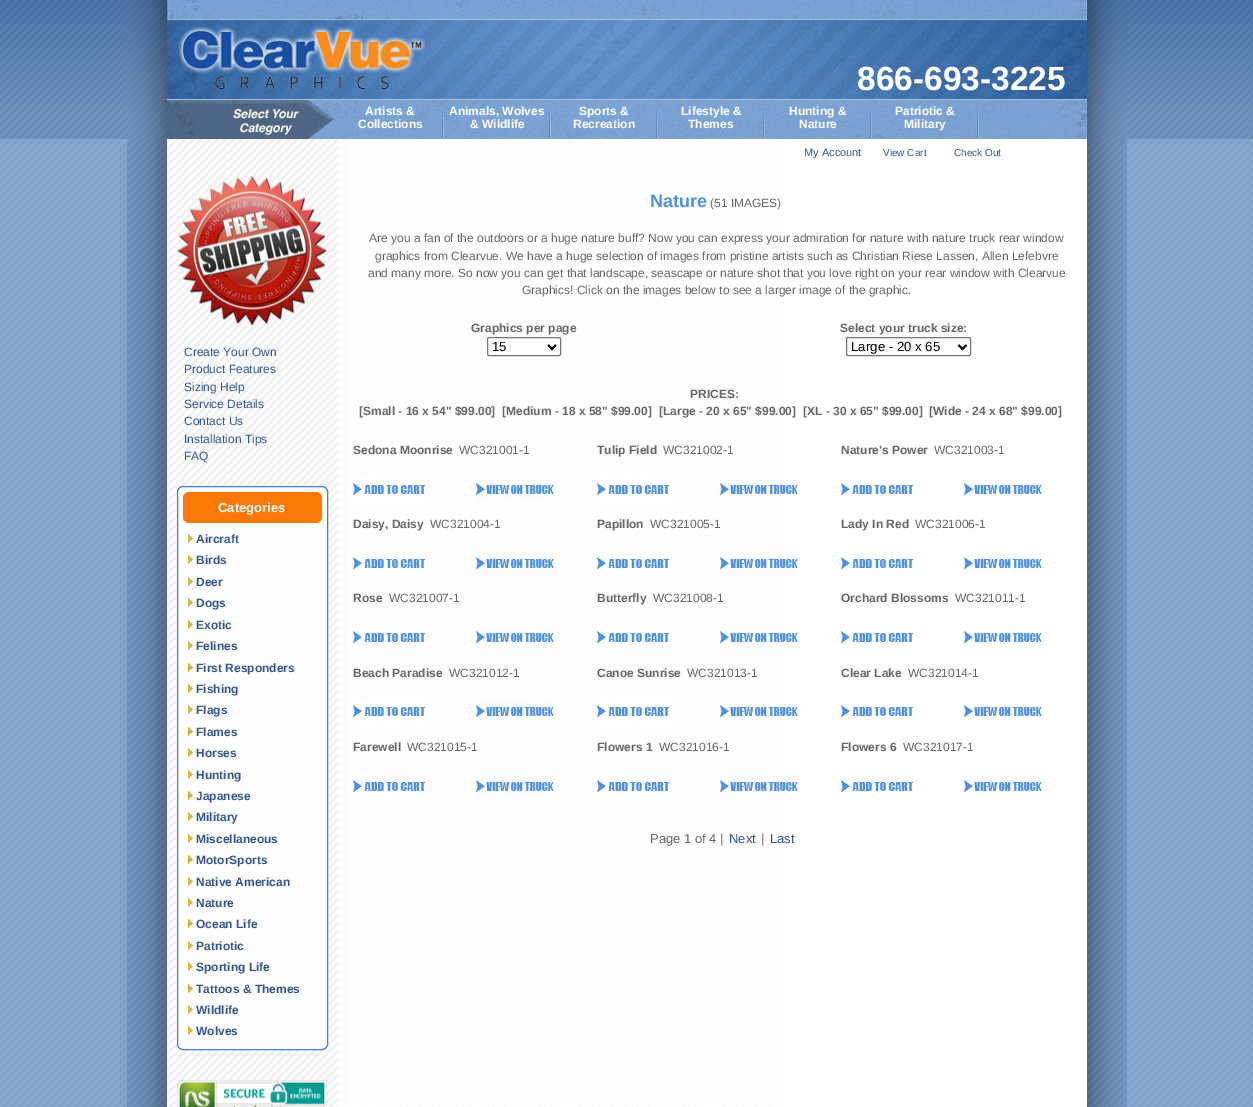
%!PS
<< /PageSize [1253 1107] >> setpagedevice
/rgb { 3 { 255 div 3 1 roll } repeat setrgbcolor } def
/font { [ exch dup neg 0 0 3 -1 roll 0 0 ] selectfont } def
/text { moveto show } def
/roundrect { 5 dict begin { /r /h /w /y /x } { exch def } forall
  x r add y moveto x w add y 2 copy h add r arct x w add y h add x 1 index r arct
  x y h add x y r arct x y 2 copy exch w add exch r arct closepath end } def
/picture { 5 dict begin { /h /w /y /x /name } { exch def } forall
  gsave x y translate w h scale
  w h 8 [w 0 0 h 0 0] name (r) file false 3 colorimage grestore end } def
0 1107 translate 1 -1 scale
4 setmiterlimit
255 255 255 rgb
0 0 1253 1107 rectfill
(img_01.rgb) 0 139 1253 968 picture
(img_02.rgb) 0 0 1253 139 picture
(img_03.rgb) 127 139 1000 968 picture
(img_04.rgb) 127 0 1000 100 picture
(img_05.rgb) 178 26 248 63 picture
(img_06.rgb) 127 100 1000 39 picture
(img_07.rgb) 442 100 2 39 picture
(img_07.rgb) 549 100 2 39 picture
(img_07.rgb) 656 100 2 39 picture
(img_07.rgb) 763 100 2 39 picture
(img_07.rgb) 870 100 2 39 picture
(img_07.rgb) 977 100 2 39 picture
(img_08.rgb) 177 176 150 150 picture
255 254 254 rgb
177.5 486.5 150 563 5.5 roundrect gsave fill grestore
62 127 213 rgb
stroke
252 121 8 rgb
183 492 139 31 6 roundrect fill
(img_09.rgb) 188 534 5 9 picture
(img_09.rgb) 188 555 5 9 picture
(img_09.rgb) 188 577 5 9 picture
(img_09.rgb) 188 598 5 9 picture
(img_09.rgb) 188 620 5 9 picture
(img_09.rgb) 188 641 5 9 picture
(img_09.rgb) 188 663 5 9 picture
(img_09.rgb) 188 684 5 9 picture
(img_09.rgb) 188 705 5 9 picture
(img_09.rgb) 188 727 5 9 picture
(img_09.rgb) 188 748 5 9 picture
(img_09.rgb) 188 770 5 9 picture
(img_09.rgb) 188 791 5 9 picture
(img_09.rgb) 188 812 5 9 picture
(img_09.rgb) 188 834 5 9 picture
(img_09.rgb) 188 855 5 9 picture
(img_09.rgb) 188 877 5 9 picture
(img_09.rgb) 188 898 5 9 picture
(img_09.rgb) 188 919 5 9 picture
(img_09.rgb) 188 941 5 9 picture
(img_09.rgb) 188 962 5 9 picture
(img_09.rgb) 188 984 5 9 picture
(img_09.rgb) 188 1005 5 9 picture
(img_09.rgb) 188 1026 5 9 picture
(img_10.rgb) 177 1080 150 27 picture
255 255 255 rgb
487.5 337.5 73 18 1.5 roundrect gsave fill grestore
118 118 118 rgb
stroke
0 0 0 rgb
2 setlinewidth
548 345 moveto 4 4 rlineto 4 -4 rlineto stroke
118 118 118 rgb
1 setlinewidth
846.5 337.5 124 18 1.5 roundrect stroke
0 0 0 rgb
2 setlinewidth
958.5 345 moveto 4 4 rlineto 4 -4 rlineto stroke
(img_11.rgb) 353 477 74 25 picture
(img_12.rgb) 476 479 78 22 picture
(img_13.rgb) 597 477 73 25 picture
(img_14.rgb) 720 479 78 17 picture
(img_15.rgb) 841 483 73 13 picture
(img_16.rgb) 964 483 78 13 picture
(img_11.rgb) 353 551 74 25 picture
(img_17.rgb) 476 551 78 25 picture
(img_13.rgb) 597 551 73 25 picture
(img_17.rgb) 720 551 78 25 picture
(img_15.rgb) 841 557 73 13 picture
(img_16.rgb) 964 557 78 13 picture
(img_11.rgb) 353 625 74 25 picture
(img_18.rgb) 476 628 78 20 picture
(img_13.rgb) 597 625 73 25 picture
(img_19.rgb) 720 631 78 17 picture
(img_15.rgb) 841 631 73 13 picture
(img_16.rgb) 964 631 78 13 picture
(img_11.rgb) 353 699 74 25 picture
(img_20.rgb) 476 700 78 20 picture
(img_13.rgb) 597 699 73 25 picture
(img_21.rgb) 720 703 78 17 picture
(img_15.rgb) 841 705 73 13 picture
(img_16.rgb) 964 705 78 13 picture
(img_11.rgb) 353 774 74 25 picture
(img_22.rgb) 476 775 78 22 picture
(img_13.rgb) 597 774 73 25 picture
(img_23.rgb) 720 775 78 18 picture
(img_15.rgb) 841 780 73 13 picture
(img_16.rgb) 964 780 78 13 picture
/LiberationSans-Bold 33.5 font
255 255 255 rgb
(866-693-3225) 857 90 text
/LiberationSans-Bold 12 font
(Artists &) 365 115 text
(Collections) 358 128 text
(Animals, Wolves) 449 115 text
(& Wildlife) 470 128 text
(Sports &) 579 115 text
(Recreation) 573 128 text
(Lifestyle &) 681 115 text
(Themes) 688 128 text
(Hunting &) 789 115 text
(Nature) 799 128 text
(Patriotic &) 895 115 text
(Military) 904 128 text
/LiberationSans-Regular 12 font
51 86 143 rgb
(Create Your Own) 184 356 text
(Product Features) 184 373 text
(Sizing Help) 184 391 text
(Service Details) 184 408 text
(Contact Us) 184 425 text
(Installation Tips) 184 443 text
(FAQ) 184 460 text
/LiberationSans-Bold 13 font
255 255 255 rgb
(Categories) 218 512 text
/LiberationSans-Bold 12 font
51 86 143 rgb
(Aircraft) 196 543 text
(Birds) 196 564 text
(Deer) 196 586 text
(Dogs) 196 607 text
(Exotic) 196 629 text
(Felines) 196 650 text
(First Responders) 196 672 text
(Fishing) 196 693 text
(Flags) 196 714 text
(Flames) 196 736 text
(Horses) 196 757 text
(Hunting) 196 779 text
(Japanese) 196 800 text
(Military) 196 821 text
(Miscellaneous) 196 843 text
(MotorSports) 196 864 text
(Native American) 196 886 text
(Nature) 196 907 text
(Ocean Life) 196 928 text
(Patriotic) 196 950 text
(Sporting Life) 196 971 text
(Tattoos & Themes) 196 993 text
(Wildlife) 196 1014 text
(Wolves) 196 1035 text
/LiberationSans-Regular 11 font
(My Account) 804 156 text
/LiberationSans-Regular 10 font
(View Cart) 883 156 text
(Check Out) 954 156 text
/LiberationSans-Bold 18 font
77 145 224 rgb
(Nature) 650 207 text
/LiberationSans-Regular 12 font
102 102 102 rgb
(\(51 IMAGES\)) 710 207 text
(Are you a fan of the outdoors or a huge nature buff? Now you can express your admiration for nature with nature truck rear window) 369 242 text
(graphics from Clearvue. We have a huge selection of images from pristine artists such as Christian Riese Lassen, Allen Lefebvre) 375 260 text
(and many more. So now you can get that landscape, seascape or nature shot that you love right on your rear window with Clearvue) 368 277 text
(Graphics! Click on the images below to see a larger image of the graphic.) 522 294 text
/LiberationSans-Bold 12 font
(Graphics per page) 471 332 text
/LiberationSans-Regular 13.25 font
0 0 0 rgb
(15) 492 351 text
/LiberationSans-Bold 12 font
102 102 102 rgb
(Select your truck size:) 840 332 text
/LiberationSans-Regular 13.25 font
0 0 0 rgb
(Large - 20 x 65) 851 351 text
/LiberationSans-Bold 12 font
102 102 102 rgb
(PRICES:) 690 398 text
([Small - 16 x 54" $99.00]) 359 415 text
([Medium - 18 x 58" $99.00]) 502 415 text
([Large - 20 x 65" $99.00]) 659 415 text
([XL - 30 x 65" $99.00]) 803 415 text
([Wide - 24 x 68" $99.00]) 929 415 text
(Sedona Moonrise) 353 454 text
/LiberationSans-Regular 12 font
(WC321001-1) 459 454 text
/LiberationSans-Bold 12 font
(Tulip Field) 597 454 text
/LiberationSans-Regular 12 font
(WC321002-1) 663 454 text
/LiberationSans-Bold 12 font
(Nature's Power) 841 454 text
/LiberationSans-Regular 12 font
(WC321003-1) 934 454 text
/LiberationSans-Bold 12 font
(Daisy, Daisy) 353 528 text
/LiberationSans-Regular 12 font
(WC321004-1) 430 528 text
/LiberationSans-Bold 12 font
(Papillon) 597 528 text
/LiberationSans-Regular 12 font
(WC321005-1) 650 528 text
/LiberationSans-Bold 12 font
(Lady In Red) 841 528 text
/LiberationSans-Regular 12 font
(WC321006-1) 915 528 text
/LiberationSans-Bold 12 font
(Rose) 353 602 text
/LiberationSans-Regular 12 font
(WC321007-1) 389 602 text
/LiberationSans-Bold 12 font
(Butterfly) 597 602 text
/LiberationSans-Regular 12 font
(WC321008-1) 653 602 text
/LiberationSans-Bold 12 font
(Orchard Blossoms) 841 602 text
/LiberationSans-Regular 12 font
(WC321011-1) 955 602 text
/LiberationSans-Bold 12 font
(Beach Paradise) 353 677 text
/LiberationSans-Regular 12 font
(WC321012-1) 449 677 text
/LiberationSans-Bold 12 font
(Canoe Sunrise) 597 677 text
/LiberationSans-Regular 12 font
(WC321013-1) 687 677 text
/LiberationSans-Bold 12 font
(Clear Lake) 841 677 text
/LiberationSans-Regular 12 font
(WC321014-1) 908 677 text
/LiberationSans-Bold 12 font
(Farewell) 353 751 text
/LiberationSans-Regular 12 font
(WC321015-1) 407 751 text
/LiberationSans-Bold 12 font
(Flowers 1) 597 751 text
/LiberationSans-Regular 12 font
(WC321016-1) 659 751 text
/LiberationSans-Bold 12 font
(Flowers 6) 841 751 text
/LiberationSans-Regular 12 font
(WC321017-1) 903 751 text
/LiberationSans-Regular 13 font
(Page 1 of 4 |) 650 843 text
51 86 143 rgb
(Next) 729 843 text
102 102 102 rgb
(|) 761 843 text
51 86 143 rgb
(Last) 770 843 text
showpage
